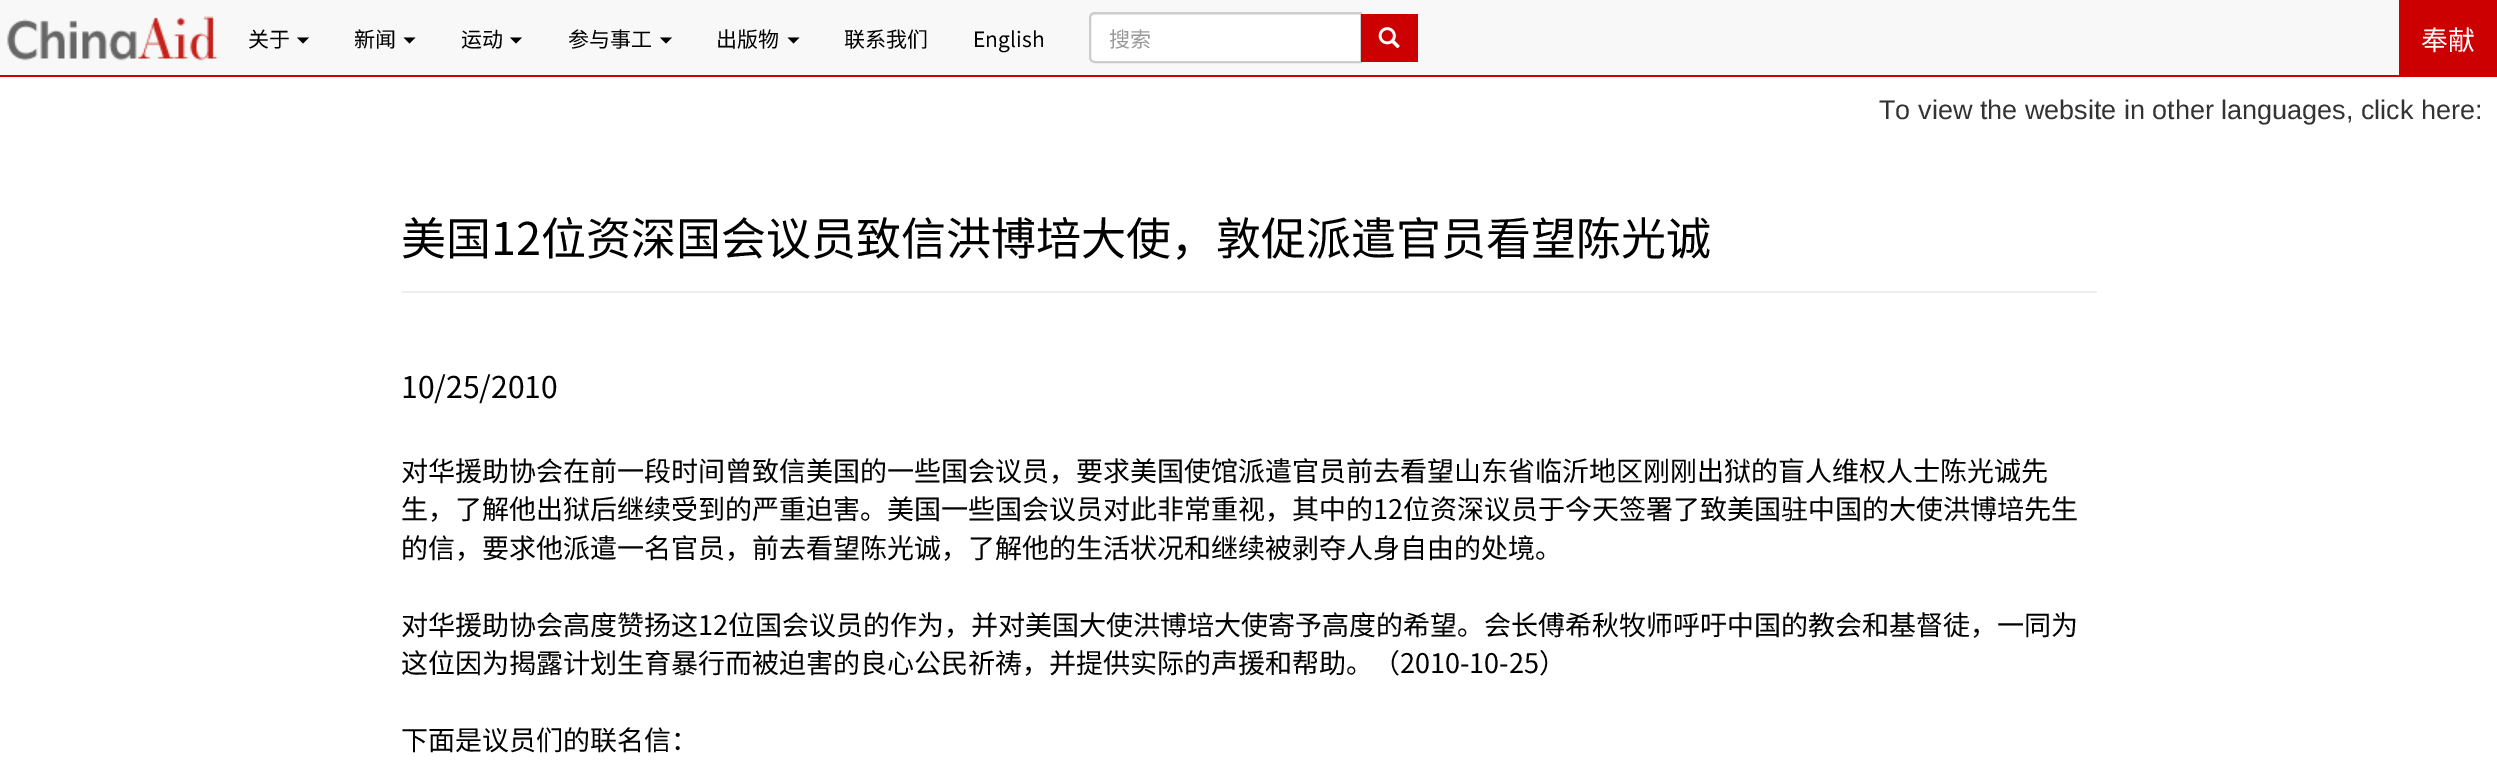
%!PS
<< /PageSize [2497 771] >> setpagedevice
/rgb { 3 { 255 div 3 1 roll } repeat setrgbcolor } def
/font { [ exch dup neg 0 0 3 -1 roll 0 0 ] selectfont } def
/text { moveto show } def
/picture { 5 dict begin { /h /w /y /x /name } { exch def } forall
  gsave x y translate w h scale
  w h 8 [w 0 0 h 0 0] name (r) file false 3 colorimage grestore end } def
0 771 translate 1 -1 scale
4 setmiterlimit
255 255 255 rgb
0 0 2497 771 rectfill
248 248 248 rgb
0 0 2399 75 rectfill
204 0 0 rgb
0 75 2497 2 rectfill
(img_01.rgb) 7 16 211 45 picture
0 0 0 rgb
297 37.5 moveto 12 0 rlineto -6 6 rlineto closepath fill
403.5 37.5 moveto 12 0 rlineto -6 6 rlineto closepath fill
510 37.5 moveto 12 0 rlineto -6 6 rlineto closepath fill
660 37.5 moveto 12 0 rlineto -6 6 rlineto closepath fill
787.5 37.5 moveto 12 0 rlineto -6 6 rlineto closepath fill
255 255 255 rgb
1095 12 moveto 267 0 rlineto 0 51 rlineto -267 0 rlineto -3.5 0 -6 -2.5 -6 -6 rcurveto 0 -39 rlineto 0 -3.5 2.5 -6 6 -6 rcurveto closepath fill
236 236 236 rgb
1095 15 moveto 265 0 rlineto 0 47 rlineto 1 0 rlineto 0 -48 rlineto -266 0 rlineto -2 1 rlineto -1 1 rlineto closepath fill
204 204 204 rgb
2 setlinewidth
1095 13 moveto 266 0 rlineto 0 49 rlineto -266 0 rlineto -3 0 -5 -2 -5 -5 rcurveto 0 -39 rlineto 0 -3 2 -5 5 -5 rcurveto closepath stroke
204 0 0 rgb
1361 14 57 48 rectfill
(img_02.rgb) 1378 27 22 22 picture
2399 0 98 75 rectfill
238 238 238 rgb
402 291 1695 2 rectfill
/NotoSansSC-Regular 21 font
0 0 0 rgb
(关于) 248 47 text
(新闻) 354 47 text
(运动) 461 47 text
(参与事工) 568 47 text
(出版物) 716 47 text
(联系我们) 844 47 text
(English) 973 47 text
153 153 153 rgb
(搜索) 1109 47 text
/NotoSansSC-Regular 27 font
255 255 255 rgb
(奉献) 2421 50 text
/LiberationSans-Regular 27 font
51 51 51 rgb
(To view the website in other languages, click here:) 1879 119 text
/NotoSansSC-Regular 45 font
0 0 0 rgb
(美国12位资深国会议员致信洪博培大使，敦促派遣官员看望陈光诚) 401 255 text
/NotoSansSC-Regular 30 font
(10/25/2010) 401 398 text
/NotoSansSC-Regular 27 font
(对华援助协会在前一段时间曾致信美国的一些国会议员，要求美国使馆派遣官员前去看望山东省临沂地区刚刚出狱的盲人维权人士陈光诚先) 401 481 text
(生，了解他出狱后继续受到的严重迫害。美国一些国会议员对此非常重视，其中的12位资深议员于今天签署了致美国驻中国的大使洪博培先生) 401 519 text
(的信，要求他派遣一名官员，前去看望陈光诚，了解他的生活状况和继续被剥夺人身自由的处境。) 401 558 text
(对华援助协会高度赞扬这12位国会议员的作为，并对美国大使洪博培大使寄予高度的希望。会长傅希秋牧师呼吁中国的教会和基督徒，一同为) 401 635 text
(这位因为揭露计划生育暴行而被迫害的良心公民祈祷，并提供实际的声援和帮助。（2010-10-25）) 401 673 text
(下面是议员们的联名信：) 401 750 text
showpage
